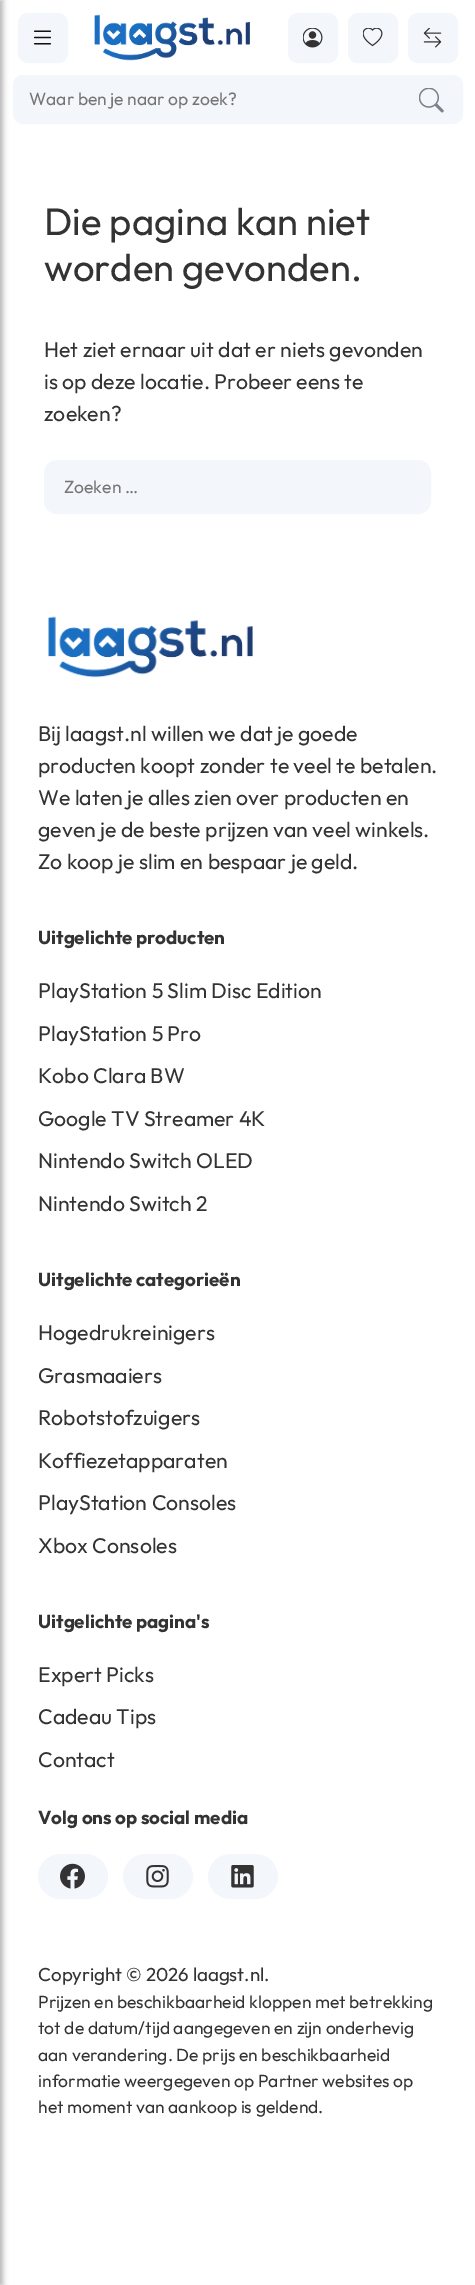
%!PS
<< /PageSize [475 2285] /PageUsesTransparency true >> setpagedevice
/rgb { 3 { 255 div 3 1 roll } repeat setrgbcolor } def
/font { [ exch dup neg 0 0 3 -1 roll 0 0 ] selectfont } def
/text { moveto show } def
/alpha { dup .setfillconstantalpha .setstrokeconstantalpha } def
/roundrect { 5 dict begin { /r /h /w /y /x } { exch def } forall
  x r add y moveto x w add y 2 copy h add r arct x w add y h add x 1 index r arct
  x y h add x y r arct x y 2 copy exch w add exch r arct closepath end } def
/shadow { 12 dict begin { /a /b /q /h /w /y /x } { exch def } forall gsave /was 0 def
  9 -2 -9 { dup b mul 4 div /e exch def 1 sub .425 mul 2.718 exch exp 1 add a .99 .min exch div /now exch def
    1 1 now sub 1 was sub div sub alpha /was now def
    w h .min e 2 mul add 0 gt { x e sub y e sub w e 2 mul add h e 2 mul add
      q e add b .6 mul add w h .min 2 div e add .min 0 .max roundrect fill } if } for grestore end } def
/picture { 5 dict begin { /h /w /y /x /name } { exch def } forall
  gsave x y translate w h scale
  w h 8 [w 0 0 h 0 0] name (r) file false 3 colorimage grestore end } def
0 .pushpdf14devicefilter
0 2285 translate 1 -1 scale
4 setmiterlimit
255 255 255 rgb
0 0 475 2285 rectfill
0 0 0 rgb
-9 0 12 2285 0 3 0.3 shadow
243 246 251 rgb
18.5 13.5 49 49 9.5 roundrect gsave fill grestore
stroke
(img_01.rgb) 33 30 19 15 picture
(img_02.rgb) 94 14 156 47 picture
288.5 13.5 49 49 9.5 roundrect gsave fill grestore
stroke
(img_03.rgb) 303 28 20 20 picture
348.5 13.5 49 49 9.5 roundrect gsave fill grestore
stroke
(img_04.rgb) 363 28 20 19 picture
408.5 13.5 49 49 9.5 roundrect gsave fill grestore
stroke
(img_05.rgb) 423 28 19 20 picture
13.5 75.5 449 48 9.5 roundrect gsave fill grestore
stroke
(img_06.rgb) 419 88 25 25 picture
44.5 460.5 386 53 12.5 roundrect gsave fill grestore
stroke
(img_07.rgb) 48 616 205 62 picture
38 1854 70 45 22.5 roundrect fill
(img_08.rgb) 60 1863 25 26 picture
123 1854 70 45 22.5 roundrect fill
(img_09.rgb) 146 1865 23 23 picture
208 1854 70 45 22.5 roundrect fill
(img_10.rgb) 231 1865 23 23 picture
/Outfit-Regular 17.5 font
117 117 117 rgb
(Waar ben je naar op zoek?) 29 105 text
/Outfit-Regular 38.25 font
51 51 51 rgb
(Die pagina kan niet) 44 235 text
(worden gevonden.) 44 281 text
/Outfit-Regular 21.25 font
(Het ziet ernaar uit dat er niets gevonden) 44 357 text
(is op deze locatie. Probeer eens te) 44 389 text
(zoeken?) 44 421 text
/Outfit-Regular 17.5 font
117 117 117 rgb
(Zoeken …) 64 493 text
/Outfit-Regular 21.25 font
51 51 51 rgb
(Bij laagst.nl willen we dat je goede) 38 741 text
(producten koopt zonder te veel te betalen.) 38 773 text
(We laten je alles zien over producten en) 38 805 text
(geven je de beste prijzen van veel winkels.) 38 837 text
(Zo koop je slim en bespaar je geld.) 38 869 text
/Outfit-Bold 18.75 font
(Uitgelichte producten) 38 944 text
/Outfit-Regular 21.25 font
(PlayStation 5 Slim Disc Edition) 38 998 text
(PlayStation 5 Pro) 38 1041 text
(Kobo Clara BW) 38 1083 text
(Google TV Streamer 4K) 38 1126 text
(Nintendo Switch OLED) 38 1168 text
(Nintendo Switch 2) 38 1211 text
/Outfit-Bold 18.75 font
(Uitgelichte categorieën) 38 1286 text
/Outfit-Regular 21.25 font
(Hogedrukreinigers) 38 1340 text
(Grasmaaiers) 38 1383 text
(Robotstofzuigers) 38 1425 text
(Koffiezetapparaten) 38 1468 text
(PlayStation Consoles) 38 1510 text
(Xbox Consoles) 38 1553 text
/Outfit-Bold 18.75 font
(Uitgelichte pagina's) 38 1628 text
/Outfit-Regular 21.25 font
(Expert Picks) 38 1682 text
(Cadeau Tips) 38 1724 text
(Contact) 38 1767 text
/Outfit-Bold 18.75 font
(Volg ons op social media) 38 1824 text
/Outfit-Regular 18.75 font
(Copyright © 2026 laagst.nl.) 38 1981 text
/Outfit-Regular 17.5 font
(Prijzen en beschikbaarheid kloppen met betrekking) 38 2008 text
(tot de datum/tijd aangegeven en zijn onderhevig) 38 2034 text
(aan verandering. De prijs en beschikbaarheid) 38 2061 text
(informatie weergegeven op Partner websites op) 38 2087 text
(het moment van aankoop is geldend.) 38 2113 text
.poppdf14devicefilter showpage
